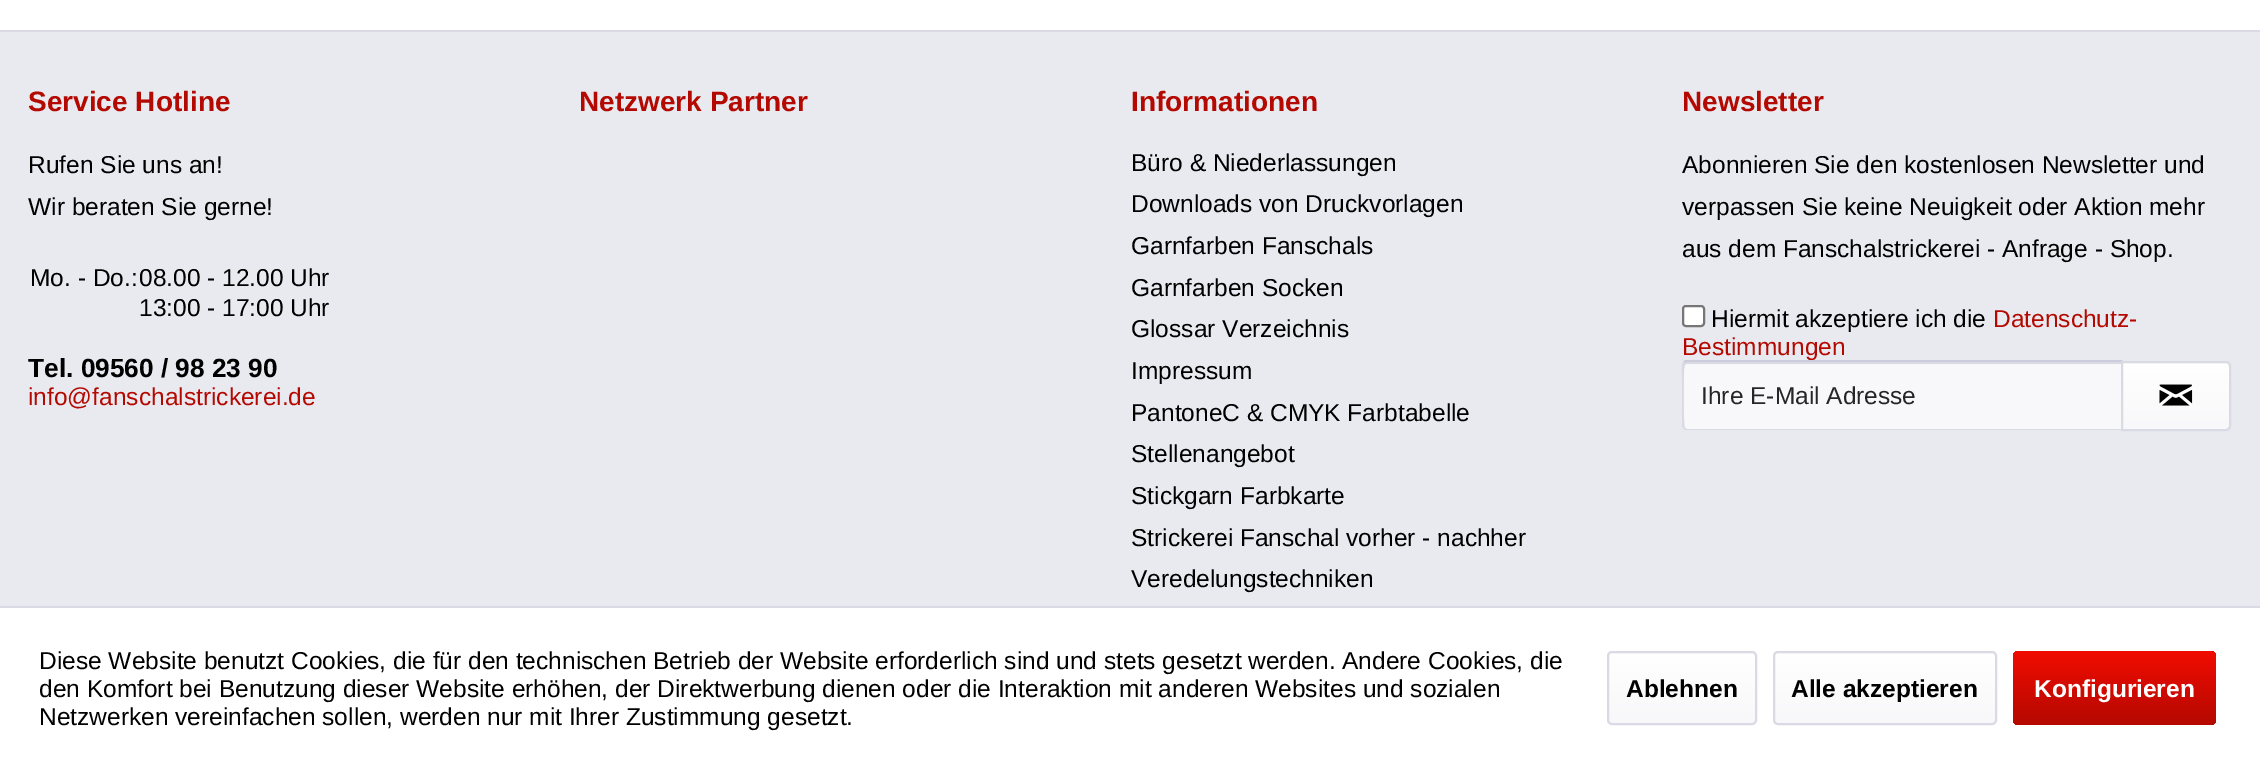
%!PS
<< /PageSize [2260 768] >> setpagedevice
/rgb { 3 { 255 div 3 1 roll } repeat setrgbcolor } def
/font { [ exch dup neg 0 0 3 -1 roll 0 0 ] selectfont } def
/text { moveto show } def
/roundrect { 5 dict begin { /r /h /w /y /x } { exch def } forall
  x r add y moveto x w add y 2 copy h add r arct x w add y h add x 1 index r arct
  x y h add x y r arct x y 2 copy exch w add exch r arct closepath end } def
/picture { 5 dict begin { /h /w /y /x /name } { exch def } forall
  gsave x y translate w h scale
  w h 8 [w 0 0 h 0 0] name (r) file false 3 colorimage grestore end } def
0 768 translate 1 -1 scale
4 setmiterlimit
255 255 255 rgb
0 0 2260 768 rectfill
233 233 240 rgb
0 32 2260 574 rectfill
218 218 229 rgb
0 30 2260 2 rectfill
255 255 255 rgb
1683 306 21 20 3 roundrect gsave fill grestore
118 118 118 rgb
2 setlinewidth
stroke
248 248 250 rgb
1688 362 moveto 433 0 rlineto 0 67 rlineto -433 0 rlineto -2 0 -4 -2 -4 -4 rcurveto 0 -59 rlineto 0 -2 2 -4 4 -4 rcurveto closepath fill
218 218 229 rgb
1687 364 moveto 434 0 rlineto 0 -2 rlineto -433 0 rlineto -2 0 -4 2 -4 4 rcurveto 0 2 rlineto 0 -2 1 -4 3 -4 rcurveto closepath fill
gsave 2123 362 moveto 103 0 rlineto 2 0 4 2 4 4 rcurveto 0 59 rlineto 0 2 -2 4 -4 4 rcurveto -103 0 rlineto closepath clip newpath
<< /ShadingType 2 /ColorSpace /DeviceRGB /Coords [2176 362 2176 429] /Extend [true true] /Function << /FunctionType 2 /Domain [0 1] /C0 [1 1 1] /C1 [0.973 0.973 0.98] /N 1 >> >> shfill grestore
0 606 2260 2 rectfill
gsave 1608 653 147 70 4 roundrect clip newpath
<< /ShadingType 2 /ColorSpace /DeviceRGB /Coords [1682 653 1682 723] /Extend [true true] /Function << /FunctionType 2 /Domain [0 1] /C0 [1 1 1] /C1 [0.973 0.973 0.98] /N 1 >> >> shfill grestore
1608 652 148 72 4 roundrect stroke
gsave 1775 653 220 70 4 roundrect clip newpath
<< /ShadingType 2 /ColorSpace /DeviceRGB /Coords [1885 653 1885 723] /Extend [true true] /Function << /FunctionType 2 /Domain [0 1] /C0 [1 1 1] /C1 [0.973 0.973 0.98] /N 1 >> >> shfill grestore
1774 652 222 72 4 roundrect stroke
gsave 2013 651 203 74 5 roundrect clip newpath
<< /ShadingType 2 /ColorSpace /DeviceRGB /Coords [2114 651 2114 725] /Extend [true true] /Function << /FunctionType 2 /Domain [0 1] /C0 [0.945 0.047 0] /C1 [0.706 0.035 0] /N 1 >> >> shfill grestore
/LiberationSans-Bold 28 font
180 9 0 rgb
(Service Hotline) 28 111 text
/LiberationSans-Regular 24.5 font
0 0 0 rgb
(Rufen Sie uns an!) 28 173 text
(Wir beraten Sie gerne!) 28 215 text
(Mo. - Do.:) 30 286 text
(08.00 - 12.00 Uhr) 139 286 text
(13:00 - 17:00 Uhr) 139 316 text
/LiberationSans-Bold 26.25 font
(Tel. 09560 / 98 23 90) 28 377 text
/LiberationSans-Regular 24.5 font
180 9 0 rgb
(info@fanschalstrickerei.de) 28 405 text
/LiberationSans-Bold 28 font
(Netzwerk Partner) 579 111 text
(Informationen) 1131 111 text
/LiberationSans-Regular 24.5 font
0 0 0 rgb
(Büro & Niederlassungen) 1131 171 text
(Downloads von Druckvorlagen) 1131 212 text
(Garnfarben Fanschals) 1131 254 text
(Garnfarben Socken) 1131 296 text
(Glossar Verzeichnis) 1131 337 text
(Impressum) 1131 379 text
(PantoneC & CMYK Farbtabelle) 1131 421 text
(Stellenangebot) 1131 462 text
(Stickgarn Farbkarte) 1131 504 text
(Strickerei Fanschal vorher - nachher) 1131 546 text
(Veredelungstechniken) 1131 587 text
/LiberationSans-Bold 28 font
180 9 0 rgb
(Newsletter) 1682 111 text
/LiberationSans-Regular 24.5 font
0 0 0 rgb
(Abonnieren Sie den kostenlosen Newsletter und) 1682 173 text
(verpassen Sie keine Neuigkeit oder Aktion mehr) 1682 215 text
(aus dem Fanschalstrickerei - Anfrage - Shop.) 1682 257 text
(Hiermit akzeptiere ich die) 1711 327 text
180 9 0 rgb
(Datenschutz-) 1993 327 text
(Bestimmungen) 1682 355 text
203 203 219 rgb
1687 362 moveto -1 0 -2 1 -2 1 rcurveto -2 -1 rlineto 2 -2 rlineto 438 0 rlineto -2 2 rlineto closepath fill
218 218 229 rgb
2123 360 moveto 0 70 rlineto -2 -1 rlineto 0 -67 rlineto closepath fill
2122 430 moveto -435 0 rlineto -1 0 -3 0 -3 -1 rcurveto 1 -1 rlineto 0 0 1 1 2 1 rcurveto 434 0 rlineto closepath fill
1684 429 moveto -2 -3 rlineto 0 -50 rlineto 0 -3 -1 -10 1 -14 rcurveto 2 1 rlineto -2 3 -2 62 0 65 rcurveto closepath fill
38 38 38 rgb
(Ihre E-Mail Adresse) 1701 404 text
218 218 229 rgb
2122 362 moveto 104 0 rlineto 2 0 4 2 4 4 rcurveto 0 60 rlineto 0 2 -2 4 -4 4 rcurveto -104 0 rlineto closepath stroke
(img_01.rgb) 2159 384 34 22 picture
0 0 0 rgb
(Diese Website benutzt Cookies, die für den technischen Betrieb der Website erforderlich sind und stets gesetzt werden. Andere Cookies, die) 39 669 text
(den Komfort bei Benutzung dieser Website erhöhen, der Direktwerbung dienen oder die Interaktion mit anderen Websites und sozialen) 39 697 text
(Netzwerken vereinfachen sollen, werden nur mit Ihrer Zustimmung gesetzt.) 39 725 text
/LiberationSans-Bold 24.5 font
(Ablehnen) 1626 697 text
(Alle akzeptieren) 1791 697 text
255 255 255 rgb
(Konfigurieren) 2034 697 text
showpage
